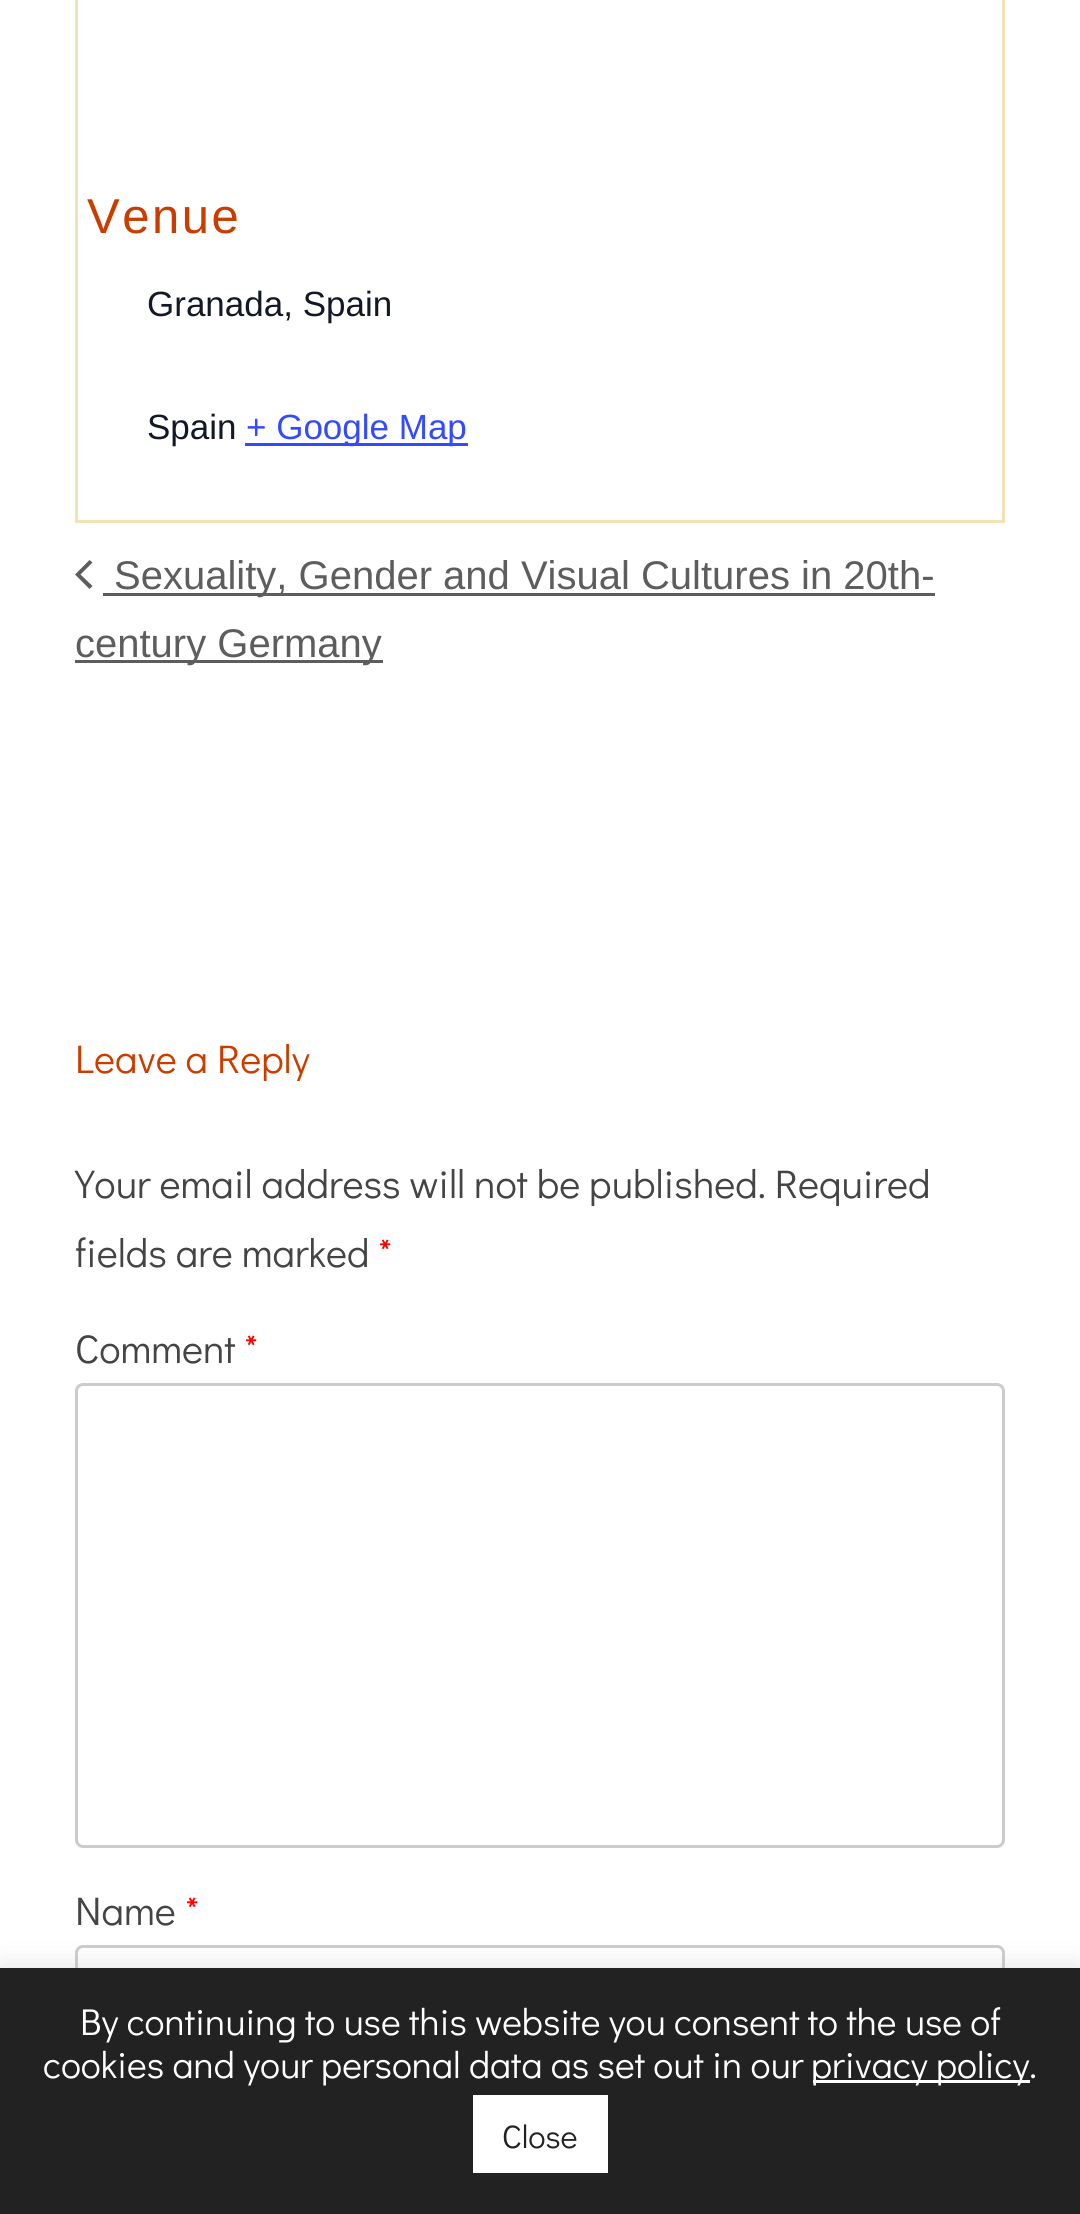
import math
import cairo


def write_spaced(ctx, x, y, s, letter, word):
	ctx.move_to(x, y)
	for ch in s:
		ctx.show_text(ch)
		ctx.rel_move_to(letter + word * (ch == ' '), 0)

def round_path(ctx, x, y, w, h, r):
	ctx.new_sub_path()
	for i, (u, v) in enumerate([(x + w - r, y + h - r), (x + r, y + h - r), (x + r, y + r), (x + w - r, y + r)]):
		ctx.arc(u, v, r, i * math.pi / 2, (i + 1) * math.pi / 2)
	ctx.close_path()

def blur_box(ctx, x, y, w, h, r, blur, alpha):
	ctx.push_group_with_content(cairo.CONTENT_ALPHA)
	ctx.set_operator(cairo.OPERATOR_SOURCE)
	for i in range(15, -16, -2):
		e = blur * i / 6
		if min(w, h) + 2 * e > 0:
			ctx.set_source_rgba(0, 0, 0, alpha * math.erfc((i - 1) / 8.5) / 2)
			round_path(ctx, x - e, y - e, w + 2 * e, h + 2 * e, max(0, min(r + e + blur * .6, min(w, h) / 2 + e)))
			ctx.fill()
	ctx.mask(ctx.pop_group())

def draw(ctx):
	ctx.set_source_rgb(1, 1, 1)
	ctx.paint()
	ctx.rectangle(76.5, -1.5, 927, 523)
	ctx.set_source_rgb(0.949, 0.89, 0.714)
	ctx.set_line_width(3)
	ctx.stroke()
	ctx.select_font_face('Liberation Sans')
	ctx.set_font_size(49)
	ctx.set_source_rgb(0.788, 0.243, 0)
	write_spaced(ctx, 87, 233, 'Venue', 2.5, 0)
	ctx.set_font_size(35)
	ctx.set_source_rgb(0.078, 0.094, 0.153)
	ctx.move_to(147, 316)
	ctx.show_text('Granada, Spain')
	ctx.move_to(147, 439)
	ctx.show_text('Spain')
	ctx.set_source_rgb(0.2, 0.29, 1)
	ctx.rectangle(245, 443, 223, 3)
	ctx.fill()
	ctx.move_to(246, 439)
	ctx.show_text('+ Google Map')
	ctx.set_source_rgb(0.365, 0.365, 0.365)
	ctx.new_path()
	ctx.move_to(92.5, 586)
	ctx.line_to(89.5, 589)
	ctx.line_to(75, 574.5)
	ctx.line_to(89.5, 560)
	ctx.line_to(92.5, 562.5)
	ctx.line_to(80.5, 574.5)
	ctx.close_path()
	ctx.fill()
	ctx.rectangle(103, 593, 832, 3)
	ctx.fill()
	ctx.set_font_size(40)
	ctx.move_to(114, 589)
	ctx.show_text('Sexuality, Gender and Visual Cultures in 20th-')
	ctx.rectangle(75, 660, 308, 3)
	ctx.fill()
	ctx.move_to(75, 657)
	ctx.show_text('century Germany')
	ctx.select_font_face('Didact Gothic')
	ctx.set_source_rgb(0.788, 0.243, 0)
	ctx.move_to(75, 1073)
	ctx.show_text('Leave a Reply')
	ctx.set_source_rgb(0.267, 0.267, 0.267)
	ctx.move_to(75, 1198)
	ctx.show_text('Your email address will not be published. Required')
	ctx.move_to(75, 1267)
	ctx.show_text('fields are marked')
	ctx.set_source_rgb(1, 0, 0)
	ctx.move_to(378, 1267)
	ctx.show_text('*')
	ctx.set_source_rgb(0.267, 0.267, 0.267)
	ctx.move_to(75, 1363)
	ctx.show_text('Comment')
	ctx.set_source_rgb(1, 0, 0)
	ctx.move_to(244, 1363)
	ctx.show_text('*')
	round_path(ctx, 76.5, 1384.5, 927, 462, 6.5)
	ctx.set_source_rgb(0.8, 0.8, 0.8)
	ctx.stroke()
	ctx.set_source_rgb(0.267, 0.267, 0.267)
	ctx.move_to(75, 1925)
	ctx.show_text('Name')
	ctx.set_source_rgb(1, 0, 0)
	ctx.move_to(185, 1925)
	ctx.show_text('*')
	round_path(ctx, 76.5, 1946.5, 927, 102, 6.5)
	ctx.set_source_rgb(0.8, 0.8, 0.8)
	ctx.stroke()
	ctx.set_source_rgb(0.675, 0.671, 0.671)
	blur_box(ctx, 0, 1965, 1080, 248, 0, 12.5, 0.3)
	ctx.set_source_rgb(0.133, 0.133, 0.133)
	ctx.rectangle(0, 1968, 1080, 246)
	ctx.fill()
	ctx.set_font_size(37.5)
	ctx.set_source_rgb(1, 1, 1)
	ctx.move_to(80, 2035)
	ctx.show_text('By continuing to use this website you consent to the use of')
	ctx.move_to(43, 2078)
	ctx.show_text('cookies and your personal data as set out in our')
	ctx.rectangle(813, 2080, 217, 3)
	ctx.fill()
	ctx.move_to(811, 2078)
	ctx.show_text('privacy policy.')
	ctx.rectangle(473, 2095, 135, 78)
	ctx.fill()
	ctx.set_font_size(32.5)
	ctx.set_source_rgb(0.133, 0.133, 0.133)
	ctx.move_to(502, 2148)
	ctx.show_text('Close')


surface = cairo.ImageSurface(cairo.FORMAT_RGB24, 1080, 2214)
ctx = cairo.Context(surface)
options = cairo.FontOptions()
options.set_hint_metrics(cairo.HINT_METRICS_OFF)
options.set_hint_style(cairo.HINT_STYLE_NONE)
ctx.set_font_options(options)
ctx.set_miter_limit(4)
draw(ctx)
surface.write_to_png('image.png')
